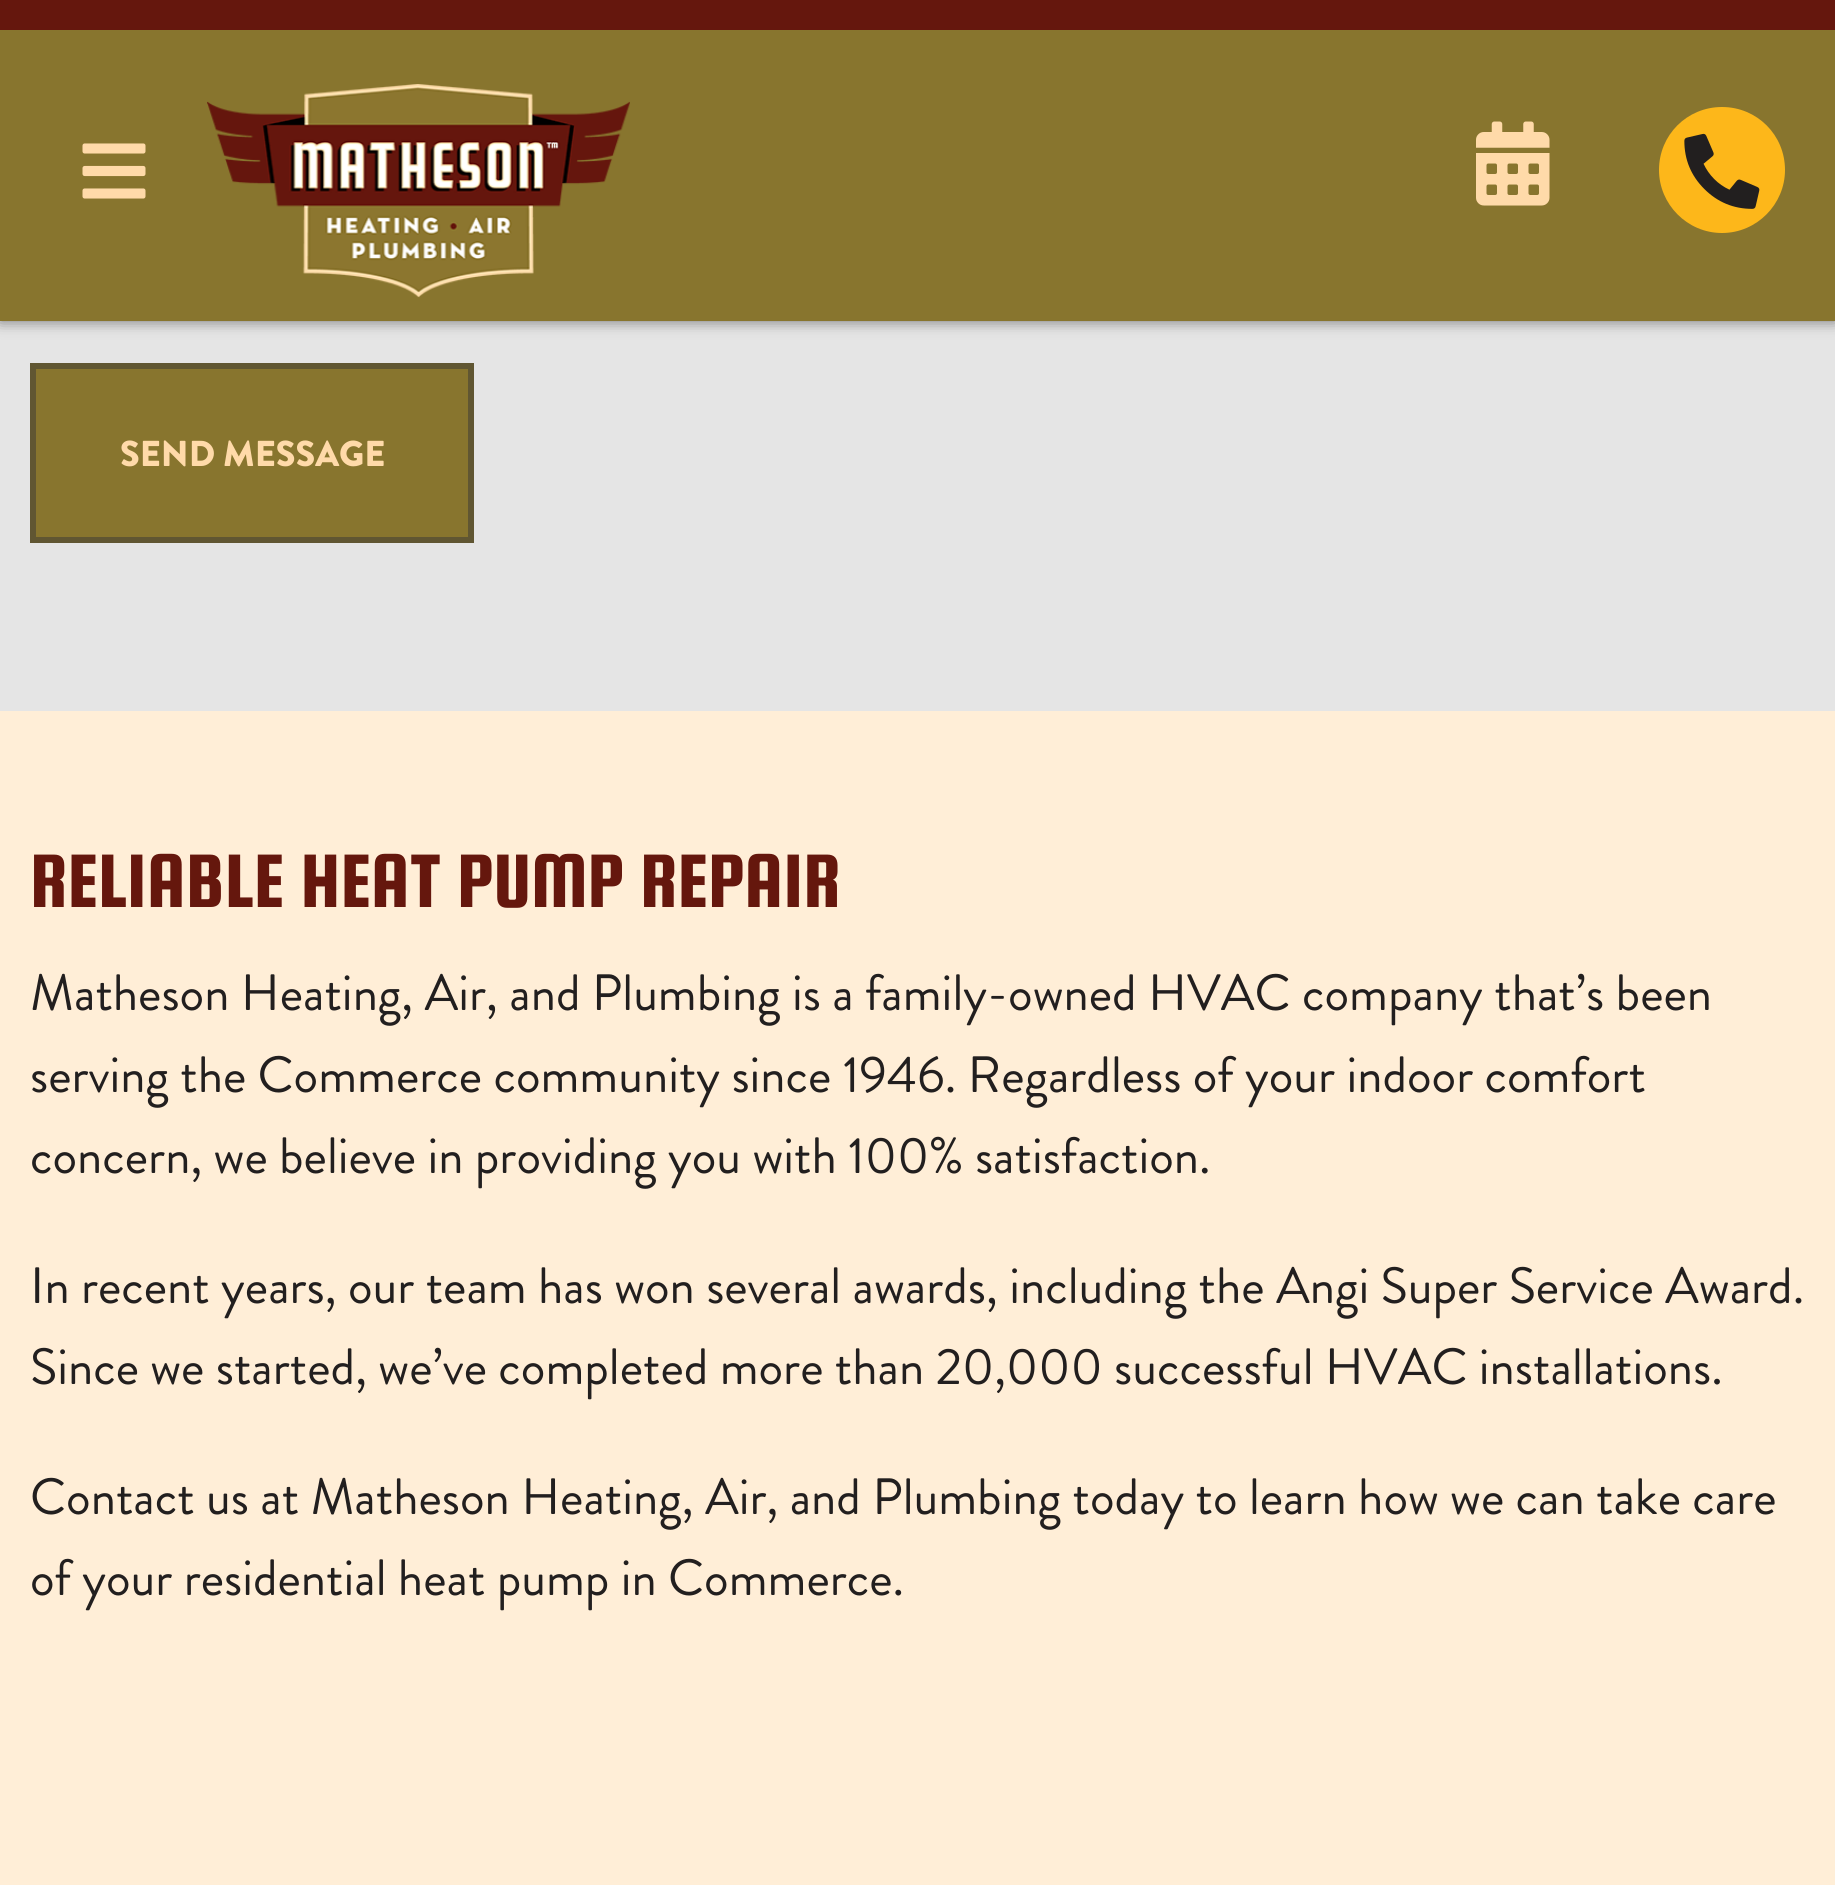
import math
import cairo


def round_path(ctx, x, y, w, h, r):
	ctx.new_sub_path()
	for i, (u, v) in enumerate([(x + w - r, y + h - r), (x + r, y + h - r), (x + r, y + r), (x + w - r, y + r)]):
		ctx.arc(u, v, r, i * math.pi / 2, (i + 1) * math.pi / 2)
	ctx.close_path()

def blur_box(ctx, x, y, w, h, r, blur, alpha):
	ctx.push_group_with_content(cairo.CONTENT_ALPHA)
	ctx.set_operator(cairo.OPERATOR_SOURCE)
	for i in range(15, -16, -2):
		e = blur * i / 6
		if min(w, h) + 2 * e > 0:
			ctx.set_source_rgba(0, 0, 0, alpha * math.erfc((i - 1) / 8.5) / 2)
			round_path(ctx, x - e, y - e, w + 2 * e, h + 2 * e, max(0, min(r + e + blur * .6, min(w, h) / 2 + e)))
			ctx.fill()
	ctx.mask(ctx.pop_group())

def paste(ctx, path, x, y, w, h):
	ctx.save()
	ctx.set_source_surface(cairo.ImageSurface.create_from_png(path), x, y)
	ctx.rectangle(x, y, w, h)
	ctx.fill()
	ctx.restore()

def draw(ctx):
	ctx.set_source_rgb(1, 0.933, 0.843)
	ctx.paint()
	ctx.set_source_rgb(0.898, 0.898, 0.898)
	ctx.rectangle(0, 321, 1835, 390)
	ctx.fill()
	ctx.set_source_rgb(0, 0, 0)
	blur_box(ctx, 0, 0, 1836, 321, 0, 7.5, 0.5)
	ctx.set_source_rgb(0.396, 0.09, 0.051)
	ctx.rectangle(0, 0, 1835, 30)
	ctx.fill()
	ctx.set_source_rgb(0.533, 0.459, 0.18)
	ctx.rectangle(0, 30, 1835, 291)
	ctx.fill()
	paste(ctx, 'media/1.png', 82, 143, 64, 56)
	paste(ctx, 'media/2.png', 207, 84, 423, 214)
	paste(ctx, 'media/3.png', 1476, 121, 74, 85)
	ctx.set_source_rgb(0.992, 0.718, 0.102)
	ctx.new_path()
	ctx.move_to(1722, 107)
	ctx.curve_to(1687, 107, 1659, 135, 1659, 170)
	ctx.curve_to(1659, 204, 1687, 233, 1722, 233)
	ctx.curve_to(1757, 233, 1785, 204, 1785, 170)
	ctx.curve_to(1785, 135, 1757, 107, 1722, 107)
	ctx.close_path()
	ctx.fill()
	paste(ctx, 'media/4.png', 1684, 133, 76, 76)
	ctx.set_source_rgb(0.533, 0.459, 0.18)
	ctx.rectangle(33, 366, 438, 174)
	ctx.fill_preserve()
	ctx.set_source_rgb(0.376, 0.337, 0.196)
	ctx.set_line_width(6)
	ctx.stroke()
	ctx.select_font_face('Brandon Grotesque Black')
	ctx.set_font_size(36)
	ctx.set_source_rgb(1, 0.855, 0.663)
	ctx.move_to(120, 466)
	ctx.show_text('SEND MESSAGE')
	ctx.select_font_face('Squada One')
	ctx.set_font_size(81)
	ctx.set_source_rgb(0.396, 0.09, 0.051)
	ctx.move_to(30, 907)
	ctx.show_text('RELIABLE HEAT PUMP REPAIR')
	ctx.select_font_face('Brandon Grotesque')
	ctx.set_font_size(51)
	ctx.set_source_rgb(0.133, 0.122, 0.122)
	for x, y, s in [
		(30, 1010, 'Matheson Heating, Air, and Plumbing is a family-owned HVAC company that’s been'),
		(30, 1092, 'serving the Commerce community since 1946. Regardless of your indoor comfort'),
		(30, 1173, 'concern, we believe in providing you with 100% satisfaction.'),
		(30, 1303, 'In recent years, our team has won several awards, including the Angi Super Service Award.'),
		(30, 1384, 'Since we started, we’ve completed more than 20,000 successful HVAC installations.'),
		(30, 1514, 'Contact us at Matheson Heating, Air, and Plumbing today to learn how we can take care'),
		(30, 1595, 'of your residential heat pump in Commerce.'),
	]:
		ctx.move_to(x, y)
		ctx.show_text(s)


surface = cairo.ImageSurface(cairo.FORMAT_RGB24, 1835, 1885)
ctx = cairo.Context(surface)
options = cairo.FontOptions()
options.set_hint_metrics(cairo.HINT_METRICS_OFF)
options.set_hint_style(cairo.HINT_STYLE_NONE)
ctx.set_font_options(options)
ctx.set_miter_limit(4)
draw(ctx)
surface.write_to_png('image.png')
